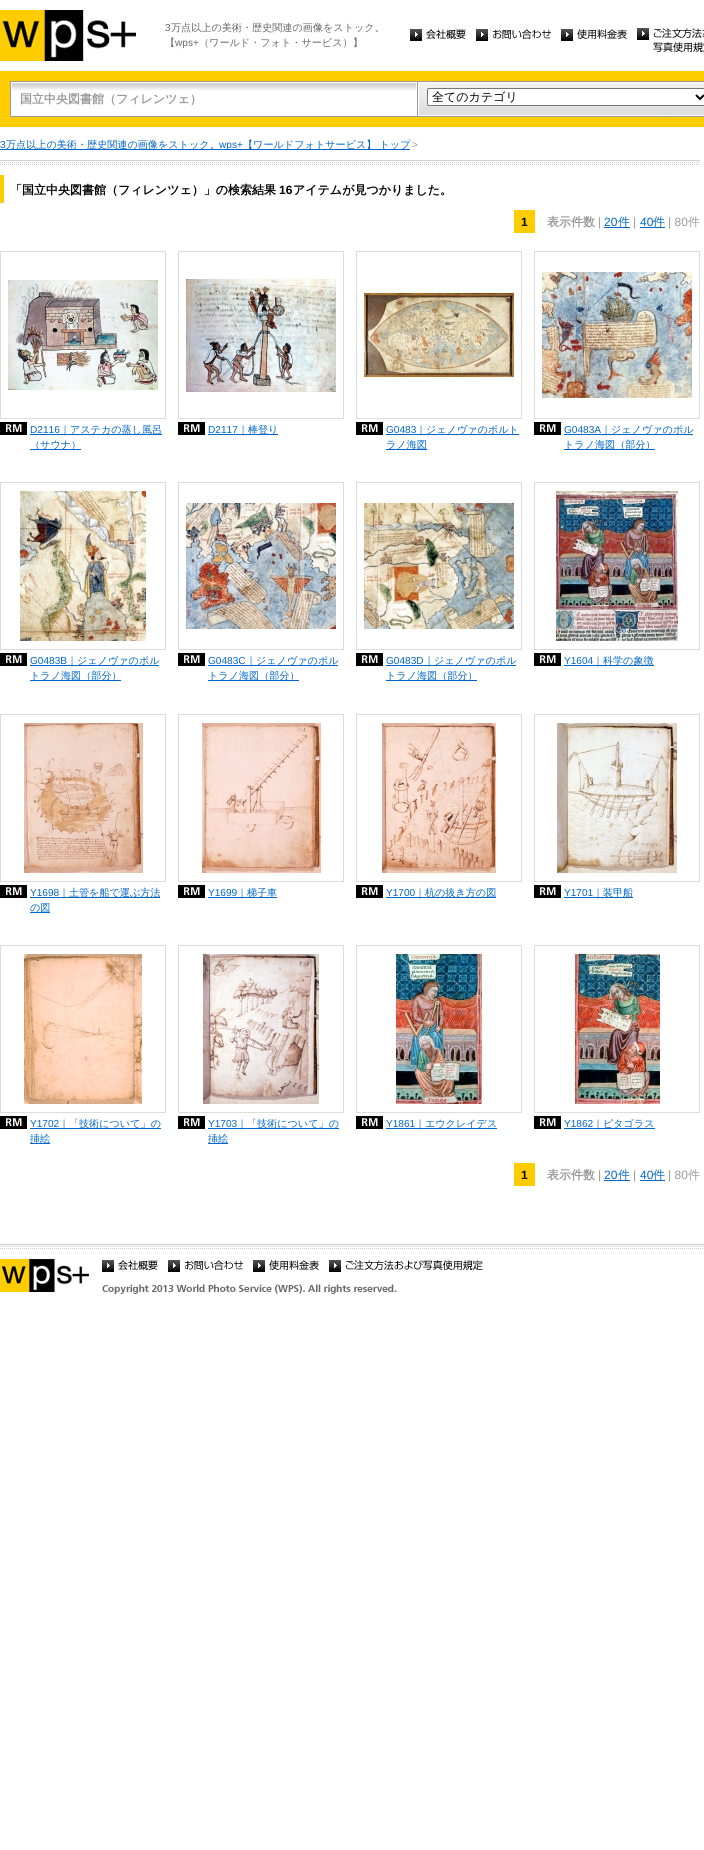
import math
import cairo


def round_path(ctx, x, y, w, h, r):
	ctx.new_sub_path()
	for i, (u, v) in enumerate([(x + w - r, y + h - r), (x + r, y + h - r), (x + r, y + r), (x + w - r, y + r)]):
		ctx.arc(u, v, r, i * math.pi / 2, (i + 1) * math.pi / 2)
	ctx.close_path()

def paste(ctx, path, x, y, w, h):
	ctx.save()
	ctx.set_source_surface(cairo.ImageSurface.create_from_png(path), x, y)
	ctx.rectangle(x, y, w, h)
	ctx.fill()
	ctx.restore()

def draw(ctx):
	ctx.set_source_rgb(1, 1, 1)
	ctx.paint()
	paste(ctx, 'media/1.png', 0, 10, 136, 51)
	ctx.select_font_face('Liberation Sans')
	ctx.set_font_size(10.1)
	ctx.set_source_rgb(0.4, 0.4, 0.4)
	ctx.move_to(165, 31)
	ctx.show_text('3')
	ctx.select_font_face('WenQuanYi Zen Hei Medium')
	ctx.move_to(171, 31)
	ctx.show_text('万点以上の美術・歴史関連の画像をストック。')
	ctx.move_to(165, 46)
	ctx.show_text('【')
	ctx.select_font_face('Liberation Sans')
	ctx.move_to(175, 46)
	ctx.show_text('wps+')
	ctx.select_font_face('WenQuanYi Zen Hei Medium')
	ctx.move_to(199, 46)
	ctx.show_text('（ワールド・フォト・サービス）】')
	paste(ctx, 'media/2.png', 410, 29, 56, 12)
	paste(ctx, 'media/3.png', 476, 29, 75, 12)
	paste(ctx, 'media/4.png', 561, 29, 66, 12)
	paste(ctx, 'media/5.png', 637, 28, 67, 24)
	ctx.set_source_rgb(1, 0.8, 0)
	ctx.rectangle(0, 71, 704, 56)
	ctx.fill()
	paste(ctx, 'media/6.png', 10, 81, 407, 36)
	ctx.select_font_face('WenQuanYi Zen Hei', cairo.FONT_SLANT_NORMAL, cairo.FONT_WEIGHT_BOLD)
	ctx.set_font_size(12)
	ctx.set_source_rgb(0.6, 0.6, 0.6)
	ctx.move_to(20, 103)
	ctx.show_text('国立中央図書館（フィレンツェ）')
	paste(ctx, 'media/7.png', 417, 81, 287, 36)
	ctx.set_source_rgb(1, 1, 1)
	round_path(ctx, 427.5, 88.5, 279, 17, 1.5)
	ctx.fill_preserve()
	ctx.set_source_rgb(0.463, 0.463, 0.463)
	ctx.set_line_width(1)
	ctx.stroke()
	ctx.new_path()
	ctx.move_to(696, 95)
	ctx.line_to(700, 99)
	ctx.line_to(704, 95)
	ctx.set_source_rgb(0, 0, 0)
	ctx.set_line_width(2)
	ctx.stroke()
	ctx.select_font_face('WenQuanYi Zen Hei Medium')
	ctx.move_to(432, 101)
	ctx.show_text('全てのカテゴリ')
	ctx.select_font_face('Liberation Sans')
	ctx.set_font_size(10.1)
	ctx.set_source_rgb(0, 0.4, 0.8)
	ctx.move_to(0, 148)
	ctx.show_text('3')
	ctx.rectangle(0, 149, 410, 1)
	ctx.fill()
	ctx.select_font_face('WenQuanYi Zen Hei Medium')
	ctx.move_to(6, 148)
	ctx.show_text('万点以上の美術・歴史関連の画像をストック。')
	ctx.select_font_face('Liberation Sans')
	ctx.move_to(219, 148)
	ctx.show_text('wps+')
	ctx.select_font_face('WenQuanYi Zen Hei Medium')
	ctx.move_to(243, 148)
	ctx.show_text('【ワールドフォトサービス】 トップ')
	ctx.select_font_face('Liberation Sans')
	ctx.set_source_rgb(0.6, 0.6, 0.6)
	ctx.move_to(412, 148)
	ctx.show_text('>')
	paste(ctx, 'media/8.png', 0, 160, 700, 5)
	ctx.set_source_rgb(1, 0.8, 0)
	ctx.rectangle(0, 175, 4, 28)
	ctx.fill()
	ctx.select_font_face('WenQuanYi Zen Hei', cairo.FONT_SLANT_NORMAL, cairo.FONT_WEIGHT_BOLD)
	ctx.set_font_size(12)
	ctx.set_source_rgb(0, 0, 0)
	ctx.move_to(10, 194)
	ctx.show_text('「国立中央図書館（フィレンツェ）」の検索結果')
	ctx.select_font_face('Liberation Sans', cairo.FONT_SLANT_NORMAL, cairo.FONT_WEIGHT_BOLD)
	ctx.move_to(279, 194)
	ctx.show_text('16')
	ctx.select_font_face('WenQuanYi Zen Hei', cairo.FONT_SLANT_NORMAL, cairo.FONT_WEIGHT_BOLD)
	ctx.move_to(293, 194)
	ctx.show_text('アイテムが見つかりました。')
	ctx.set_source_rgb(1, 0.8, 0)
	ctx.rectangle(514, 210, 21, 23)
	ctx.fill()
	ctx.select_font_face('Liberation Sans', cairo.FONT_SLANT_NORMAL, cairo.FONT_WEIGHT_BOLD)
	ctx.set_source_rgb(0, 0, 0)
	ctx.move_to(521, 226)
	ctx.show_text('1')
	ctx.select_font_face('WenQuanYi Zen Hei', cairo.FONT_SLANT_NORMAL, cairo.FONT_WEIGHT_BOLD)
	ctx.set_source_rgb(0.6, 0.6, 0.6)
	ctx.move_to(547, 226)
	ctx.show_text('表示件数')
	ctx.select_font_face('Liberation Sans')
	ctx.move_to(598, 226)
	ctx.show_text('|')
	ctx.set_source_rgb(0, 0.4, 0.8)
	ctx.move_to(604, 226)
	ctx.show_text('20')
	ctx.rectangle(604, 227, 26, 1)
	ctx.fill()
	ctx.select_font_face('WenQuanYi Zen Hei Medium')
	ctx.move_to(618, 226)
	ctx.show_text('件')
	ctx.select_font_face('Liberation Sans')
	ctx.set_source_rgb(0.6, 0.6, 0.6)
	ctx.move_to(633, 226)
	ctx.show_text('|')
	ctx.set_source_rgb(0, 0.4, 0.8)
	ctx.move_to(640, 226)
	ctx.show_text('40')
	ctx.rectangle(640, 227, 25, 1)
	ctx.fill()
	ctx.select_font_face('WenQuanYi Zen Hei Medium')
	ctx.move_to(653, 226)
	ctx.show_text('件')
	ctx.select_font_face('Liberation Sans')
	ctx.set_source_rgb(0.6, 0.6, 0.6)
	ctx.move_to(668, 226)
	ctx.show_text('| 80')
	ctx.select_font_face('WenQuanYi Zen Hei Medium')
	ctx.move_to(688, 226)
	ctx.show_text('件')
	ctx.set_source_rgb(0.863, 0.863, 0.863)
	ctx.rectangle(0, 251, 166, 1)
	ctx.rectangle(165, 251, 1, 168)
	ctx.rectangle(0, 418, 166, 1)
	ctx.rectangle(0, 251, 1, 168)
	ctx.fill()
	paste(ctx, 'media/9.png', 8, 280, 150, 110)
	paste(ctx, 'media/10.png', 0, 422, 27, 13)
	ctx.select_font_face('Liberation Sans')
	ctx.set_font_size(10.1)
	ctx.set_source_rgb(0, 0.4, 0.8)
	ctx.move_to(30, 433)
	ctx.show_text('D2116')
	ctx.rectangle(30, 434, 132, 1)
	ctx.fill()
	ctx.select_font_face('WenQuanYi Zen Hei Medium')
	ctx.move_to(60, 433)
	ctx.show_text('｜アステカの蒸し風呂')
	ctx.rectangle(30, 449, 51, 1)
	ctx.fill()
	ctx.move_to(30, 448)
	ctx.show_text('（サウナ）')
	ctx.set_source_rgb(0.863, 0.863, 0.863)
	ctx.rectangle(178, 251, 166, 1)
	ctx.rectangle(343, 251, 1, 168)
	ctx.rectangle(178, 418, 166, 1)
	ctx.rectangle(178, 251, 1, 168)
	ctx.fill()
	paste(ctx, 'media/11.png', 186, 279, 150, 113)
	paste(ctx, 'media/10.png', 178, 422, 27, 13)
	ctx.select_font_face('Liberation Sans')
	ctx.set_source_rgb(0, 0.4, 0.8)
	ctx.move_to(208, 433)
	ctx.show_text('D2117')
	ctx.rectangle(208, 434, 70, 1)
	ctx.fill()
	ctx.select_font_face('WenQuanYi Zen Hei Medium')
	ctx.move_to(238, 433)
	ctx.show_text('｜棒登り')
	ctx.set_source_rgb(0.863, 0.863, 0.863)
	ctx.rectangle(356, 251, 166, 1)
	ctx.rectangle(521, 251, 1, 168)
	ctx.rectangle(356, 418, 166, 1)
	ctx.rectangle(356, 251, 1, 168)
	ctx.fill()
	paste(ctx, 'media/12.png', 364, 293, 150, 84)
	paste(ctx, 'media/10.png', 356, 422, 27, 13)
	ctx.select_font_face('Liberation Sans')
	ctx.set_source_rgb(0, 0.4, 0.8)
	ctx.move_to(386, 433)
	ctx.show_text('G0483')
	ctx.rectangle(386, 434, 133, 1)
	ctx.fill()
	ctx.select_font_face('WenQuanYi Zen Hei Medium')
	ctx.move_to(416, 433)
	ctx.show_text('｜ジェノヴァのポルト')
	ctx.rectangle(386, 449, 41, 1)
	ctx.fill()
	ctx.move_to(386, 448)
	ctx.show_text('ラノ海図')
	ctx.set_source_rgb(0.863, 0.863, 0.863)
	ctx.rectangle(534, 251, 166, 1)
	ctx.rectangle(699, 251, 1, 168)
	ctx.rectangle(534, 418, 166, 1)
	ctx.rectangle(534, 251, 1, 168)
	ctx.fill()
	paste(ctx, 'media/13.png', 542, 272, 150, 126)
	paste(ctx, 'media/10.png', 534, 422, 27, 13)
	ctx.select_font_face('Liberation Sans')
	ctx.set_source_rgb(0, 0.4, 0.8)
	ctx.move_to(564, 433)
	ctx.show_text('G0483A')
	ctx.rectangle(564, 434, 129, 1)
	ctx.fill()
	ctx.select_font_face('WenQuanYi Zen Hei Medium')
	ctx.move_to(601, 433)
	ctx.show_text('｜ジェノヴァのポル')
	ctx.rectangle(564, 449, 91, 1)
	ctx.fill()
	ctx.move_to(564, 448)
	ctx.show_text('トラノ海図（部分）')
	ctx.set_source_rgb(0.863, 0.863, 0.863)
	ctx.rectangle(0, 482, 166, 1)
	ctx.rectangle(165, 482, 1, 168)
	ctx.rectangle(0, 649, 166, 1)
	ctx.rectangle(0, 482, 1, 168)
	ctx.fill()
	paste(ctx, 'media/14.png', 20, 491, 126, 150)
	paste(ctx, 'media/10.png', 0, 653, 27, 13)
	ctx.select_font_face('Liberation Sans')
	ctx.set_source_rgb(0, 0.4, 0.8)
	ctx.move_to(30, 664)
	ctx.show_text('G0483B')
	ctx.rectangle(30, 665, 129, 1)
	ctx.fill()
	ctx.select_font_face('WenQuanYi Zen Hei Medium')
	ctx.move_to(67, 664)
	ctx.show_text('｜ジェノヴァのポル')
	ctx.rectangle(30, 680, 91, 1)
	ctx.fill()
	ctx.move_to(30, 679)
	ctx.show_text('トラノ海図（部分）')
	ctx.set_source_rgb(0.863, 0.863, 0.863)
	ctx.rectangle(178, 482, 166, 1)
	ctx.rectangle(343, 482, 1, 168)
	ctx.rectangle(178, 649, 166, 1)
	ctx.rectangle(178, 482, 1, 168)
	ctx.fill()
	paste(ctx, 'media/15.png', 186, 503, 150, 126)
	paste(ctx, 'media/10.png', 178, 653, 27, 13)
	ctx.select_font_face('Liberation Sans')
	ctx.set_source_rgb(0, 0.4, 0.8)
	ctx.move_to(208, 664)
	ctx.show_text('G0483C')
	ctx.rectangle(208, 665, 130, 1)
	ctx.fill()
	ctx.select_font_face('WenQuanYi Zen Hei Medium')
	ctx.move_to(246, 664)
	ctx.show_text('｜ジェノヴァのポル')
	ctx.rectangle(208, 680, 91, 1)
	ctx.fill()
	ctx.move_to(208, 679)
	ctx.show_text('トラノ海図（部分）')
	ctx.set_source_rgb(0.863, 0.863, 0.863)
	ctx.rectangle(356, 482, 166, 1)
	ctx.rectangle(521, 482, 1, 168)
	ctx.rectangle(356, 649, 166, 1)
	ctx.rectangle(356, 482, 1, 168)
	ctx.fill()
	paste(ctx, 'media/16.png', 364, 503, 150, 126)
	paste(ctx, 'media/10.png', 356, 653, 27, 13)
	ctx.select_font_face('Liberation Sans')
	ctx.set_source_rgb(0, 0.4, 0.8)
	ctx.move_to(386, 664)
	ctx.show_text('G0483D')
	ctx.rectangle(386, 665, 130, 1)
	ctx.fill()
	ctx.select_font_face('WenQuanYi Zen Hei Medium')
	ctx.move_to(424, 664)
	ctx.show_text('｜ジェノヴァのポル')
	ctx.rectangle(386, 680, 91, 1)
	ctx.fill()
	ctx.move_to(386, 679)
	ctx.show_text('トラノ海図（部分）')
	ctx.set_source_rgb(0.863, 0.863, 0.863)
	ctx.rectangle(534, 482, 166, 1)
	ctx.rectangle(699, 482, 1, 168)
	ctx.rectangle(534, 649, 166, 1)
	ctx.rectangle(534, 482, 1, 168)
	ctx.fill()
	paste(ctx, 'media/17.png', 556, 491, 122, 150)
	paste(ctx, 'media/10.png', 534, 653, 27, 13)
	ctx.select_font_face('Liberation Sans')
	ctx.set_source_rgb(0, 0.4, 0.8)
	ctx.move_to(564, 664)
	ctx.show_text('Y1604')
	ctx.rectangle(564, 665, 90, 1)
	ctx.fill()
	ctx.select_font_face('WenQuanYi Zen Hei Medium')
	ctx.move_to(593, 664)
	ctx.show_text('｜科学の象徴')
	ctx.set_source_rgb(0.863, 0.863, 0.863)
	ctx.rectangle(0, 714, 166, 1)
	ctx.rectangle(165, 714, 1, 168)
	ctx.rectangle(0, 881, 166, 1)
	ctx.rectangle(0, 714, 1, 168)
	ctx.fill()
	paste(ctx, 'media/18.png', 24, 723, 119, 150)
	paste(ctx, 'media/10.png', 0, 885, 27, 13)
	ctx.select_font_face('Liberation Sans')
	ctx.set_source_rgb(0, 0.4, 0.8)
	ctx.move_to(30, 896)
	ctx.show_text('Y1698')
	ctx.rectangle(30, 897, 130, 1)
	ctx.fill()
	ctx.select_font_face('WenQuanYi Zen Hei Medium')
	ctx.move_to(59, 896)
	ctx.show_text('｜土管を船で運ぶ方法')
	ctx.rectangle(30, 912, 20, 1)
	ctx.fill()
	ctx.move_to(30, 911)
	ctx.show_text('の図')
	ctx.set_source_rgb(0.863, 0.863, 0.863)
	ctx.rectangle(178, 714, 166, 1)
	ctx.rectangle(343, 714, 1, 168)
	ctx.rectangle(178, 881, 166, 1)
	ctx.rectangle(178, 714, 1, 168)
	ctx.fill()
	paste(ctx, 'media/19.png', 202, 723, 119, 150)
	paste(ctx, 'media/10.png', 178, 885, 27, 13)
	ctx.select_font_face('Liberation Sans')
	ctx.set_source_rgb(0, 0.4, 0.8)
	ctx.move_to(208, 896)
	ctx.show_text('Y1699')
	ctx.rectangle(208, 897, 69, 1)
	ctx.fill()
	ctx.select_font_face('WenQuanYi Zen Hei Medium')
	ctx.move_to(237, 896)
	ctx.show_text('｜梯子車')
	ctx.set_source_rgb(0.863, 0.863, 0.863)
	ctx.rectangle(356, 714, 166, 1)
	ctx.rectangle(521, 714, 1, 168)
	ctx.rectangle(356, 881, 166, 1)
	ctx.rectangle(356, 714, 1, 168)
	ctx.fill()
	paste(ctx, 'media/20.png', 382, 723, 114, 150)
	paste(ctx, 'media/10.png', 356, 885, 27, 13)
	ctx.select_font_face('Liberation Sans')
	ctx.set_source_rgb(0, 0.4, 0.8)
	ctx.move_to(386, 896)
	ctx.show_text('Y1700')
	ctx.rectangle(386, 897, 110, 1)
	ctx.fill()
	ctx.select_font_face('WenQuanYi Zen Hei Medium')
	ctx.move_to(415, 896)
	ctx.show_text('｜杭の抜き方の図')
	ctx.set_source_rgb(0.863, 0.863, 0.863)
	ctx.rectangle(534, 714, 166, 1)
	ctx.rectangle(699, 714, 1, 168)
	ctx.rectangle(534, 881, 166, 1)
	ctx.rectangle(534, 714, 1, 168)
	ctx.fill()
	paste(ctx, 'media/21.png', 557, 723, 120, 150)
	paste(ctx, 'media/10.png', 534, 885, 27, 13)
	ctx.select_font_face('Liberation Sans')
	ctx.set_source_rgb(0, 0.4, 0.8)
	ctx.move_to(564, 896)
	ctx.show_text('Y1701')
	ctx.rectangle(564, 897, 69, 1)
	ctx.fill()
	ctx.select_font_face('WenQuanYi Zen Hei Medium')
	ctx.move_to(593, 896)
	ctx.show_text('｜装甲船')
	ctx.set_source_rgb(0.863, 0.863, 0.863)
	ctx.rectangle(0, 945, 166, 1)
	ctx.rectangle(165, 945, 1, 168)
	ctx.rectangle(0, 1112, 166, 1)
	ctx.rectangle(0, 945, 1, 168)
	ctx.fill()
	paste(ctx, 'media/22.png', 24, 954, 118, 150)
	paste(ctx, 'media/10.png', 0, 1116, 27, 13)
	ctx.select_font_face('Liberation Sans')
	ctx.set_source_rgb(0, 0.4, 0.8)
	ctx.move_to(30, 1127)
	ctx.show_text('Y1702')
	ctx.rectangle(30, 1128, 131, 1)
	ctx.fill()
	ctx.select_font_face('WenQuanYi Zen Hei Medium')
	ctx.move_to(59, 1127)
	ctx.show_text('｜「技術について」の')
	ctx.rectangle(30, 1143, 20, 1)
	ctx.fill()
	ctx.move_to(30, 1142)
	ctx.show_text('挿絵')
	ctx.set_source_rgb(0.863, 0.863, 0.863)
	ctx.rectangle(178, 945, 166, 1)
	ctx.rectangle(343, 945, 1, 168)
	ctx.rectangle(178, 1112, 166, 1)
	ctx.rectangle(178, 945, 1, 168)
	ctx.fill()
	paste(ctx, 'media/23.png', 203, 954, 116, 150)
	paste(ctx, 'media/10.png', 178, 1116, 27, 13)
	ctx.select_font_face('Liberation Sans')
	ctx.set_source_rgb(0, 0.4, 0.8)
	ctx.move_to(208, 1127)
	ctx.show_text('Y1703')
	ctx.rectangle(208, 1128, 131, 1)
	ctx.fill()
	ctx.select_font_face('WenQuanYi Zen Hei Medium')
	ctx.move_to(237, 1127)
	ctx.show_text('｜「技術について」の')
	ctx.rectangle(208, 1143, 20, 1)
	ctx.fill()
	ctx.move_to(208, 1142)
	ctx.show_text('挿絵')
	ctx.set_source_rgb(0.863, 0.863, 0.863)
	ctx.rectangle(356, 945, 166, 1)
	ctx.rectangle(521, 945, 1, 168)
	ctx.rectangle(356, 1112, 166, 1)
	ctx.rectangle(356, 945, 1, 168)
	ctx.fill()
	paste(ctx, 'media/24.png', 396, 954, 86, 150)
	paste(ctx, 'media/10.png', 356, 1116, 27, 13)
	ctx.select_font_face('Liberation Sans')
	ctx.set_source_rgb(0, 0.4, 0.8)
	ctx.move_to(386, 1127)
	ctx.show_text('Y1861')
	ctx.rectangle(386, 1128, 111, 1)
	ctx.fill()
	ctx.select_font_face('WenQuanYi Zen Hei Medium')
	ctx.move_to(415, 1127)
	ctx.show_text('｜エウクレイデス')
	ctx.set_source_rgb(0.863, 0.863, 0.863)
	ctx.rectangle(534, 945, 166, 1)
	ctx.rectangle(699, 945, 1, 168)
	ctx.rectangle(534, 1112, 166, 1)
	ctx.rectangle(534, 945, 1, 168)
	ctx.fill()
	paste(ctx, 'media/25.png', 575, 954, 85, 150)
	paste(ctx, 'media/10.png', 534, 1116, 27, 13)
	ctx.select_font_face('Liberation Sans')
	ctx.set_source_rgb(0, 0.4, 0.8)
	ctx.move_to(564, 1127)
	ctx.show_text('Y1862')
	ctx.rectangle(564, 1128, 91, 1)
	ctx.fill()
	ctx.select_font_face('WenQuanYi Zen Hei Medium')
	ctx.move_to(593, 1127)
	ctx.show_text('｜ピタゴラス')
	ctx.set_source_rgb(1, 0.8, 0)
	ctx.rectangle(514, 1163, 21, 23)
	ctx.fill()
	ctx.select_font_face('Liberation Sans', cairo.FONT_SLANT_NORMAL, cairo.FONT_WEIGHT_BOLD)
	ctx.set_font_size(12)
	ctx.set_source_rgb(0, 0, 0)
	ctx.move_to(521, 1179)
	ctx.show_text('1')
	ctx.select_font_face('WenQuanYi Zen Hei', cairo.FONT_SLANT_NORMAL, cairo.FONT_WEIGHT_BOLD)
	ctx.set_source_rgb(0.6, 0.6, 0.6)
	ctx.move_to(547, 1179)
	ctx.show_text('表示件数')
	ctx.select_font_face('Liberation Sans')
	ctx.move_to(598, 1179)
	ctx.show_text('|')
	ctx.set_source_rgb(0, 0.4, 0.8)
	ctx.move_to(604, 1179)
	ctx.show_text('20')
	ctx.rectangle(604, 1180, 26, 1)
	ctx.fill()
	ctx.select_font_face('WenQuanYi Zen Hei Medium')
	ctx.move_to(618, 1179)
	ctx.show_text('件')
	ctx.select_font_face('Liberation Sans')
	ctx.set_source_rgb(0.6, 0.6, 0.6)
	ctx.move_to(633, 1179)
	ctx.show_text('|')
	ctx.set_source_rgb(0, 0.4, 0.8)
	ctx.move_to(640, 1179)
	ctx.show_text('40')
	ctx.rectangle(640, 1180, 25, 1)
	ctx.fill()
	ctx.select_font_face('WenQuanYi Zen Hei Medium')
	ctx.move_to(653, 1179)
	ctx.show_text('件')
	ctx.select_font_face('Liberation Sans')
	ctx.set_source_rgb(0.6, 0.6, 0.6)
	ctx.move_to(668, 1179)
	ctx.show_text('| 80')
	ctx.select_font_face('WenQuanYi Zen Hei Medium')
	ctx.move_to(688, 1179)
	ctx.show_text('件')
	paste(ctx, 'media/26.png', 0, 1244, 704, 5)
	paste(ctx, 'media/27.png', 0, 1259, 89, 33)
	paste(ctx, 'media/2.png', 102, 1260, 56, 12)
	paste(ctx, 'media/3.png', 168, 1260, 75, 12)
	paste(ctx, 'media/4.png', 253, 1260, 66, 12)
	paste(ctx, 'media/28.png', 329, 1260, 154, 12)
	paste(ctx, 'media/29.png', 102, 1284, 295, 10)


surface = cairo.ImageSurface(cairo.FORMAT_RGB24, 704, 1850)
ctx = cairo.Context(surface)
options = cairo.FontOptions()
options.set_hint_metrics(cairo.HINT_METRICS_OFF)
options.set_hint_style(cairo.HINT_STYLE_NONE)
ctx.set_font_options(options)
ctx.set_miter_limit(4)
draw(ctx)
surface.write_to_png('image.png')
